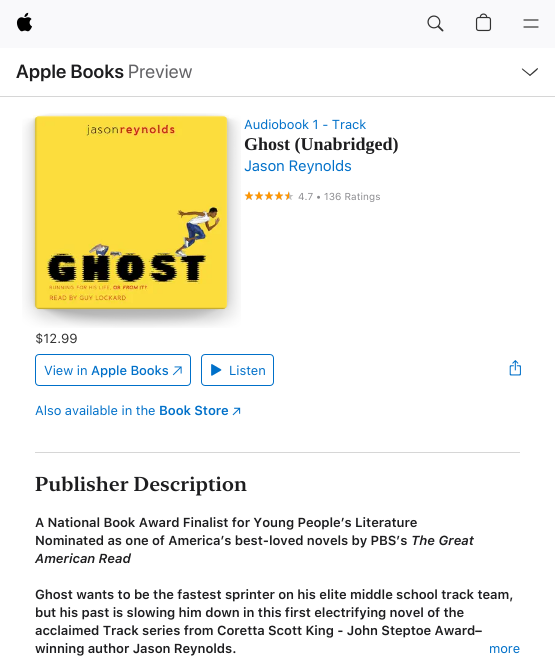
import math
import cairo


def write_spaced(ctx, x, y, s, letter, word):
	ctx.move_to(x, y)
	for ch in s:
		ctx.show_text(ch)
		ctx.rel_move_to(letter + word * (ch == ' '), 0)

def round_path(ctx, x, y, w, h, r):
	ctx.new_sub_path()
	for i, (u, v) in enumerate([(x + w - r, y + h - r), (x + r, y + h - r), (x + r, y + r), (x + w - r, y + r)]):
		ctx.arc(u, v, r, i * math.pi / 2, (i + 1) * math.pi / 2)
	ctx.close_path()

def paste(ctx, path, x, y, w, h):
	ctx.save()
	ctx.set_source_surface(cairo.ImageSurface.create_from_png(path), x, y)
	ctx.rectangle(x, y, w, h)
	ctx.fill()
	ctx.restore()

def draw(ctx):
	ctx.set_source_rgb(1, 1, 1)
	ctx.paint()
	ctx.set_source_rgb(0.976, 0.976, 0.984)
	ctx.rectangle(0, 0, 555, 48)
	ctx.fill()
	paste(ctx, 'media/1.png', 16, 12, 16, 20)
	paste(ctx, 'media/2.png', 427, 15, 17, 17)
	paste(ctx, 'media/3.png', 475, 13, 17, 19)
	ctx.new_path()
	ctx.move_to(524, 27)
	ctx.line_to(538, 27)
	ctx.move_to(524, 20)
	ctx.line_to(538, 20)
	ctx.set_source_rgb(0.196, 0.196, 0.196)
	ctx.set_line_width(1.2)
	ctx.set_line_cap(cairo.LINE_CAP_ROUND)
	ctx.set_line_join(cairo.LINE_JOIN_ROUND)
	ctx.stroke()
	ctx.select_font_face('SF Pro Display SemiBold')
	ctx.set_font_size(19)
	ctx.set_source_rgb(0.114, 0.114, 0.122)
	write_spaced(ctx, 16, 78, 'Apple Books', 0.25, 0)
	ctx.select_font_face('SF Pro Display')
	ctx.set_source_rgb(0.388, 0.388, 0.4)
	write_spaced(ctx, 128, 78, 'Preview', 0.25, 0)
	ctx.set_source_rgb(0.2, 0.2, 0.2)
	ctx.new_path()
	ctx.move_to(522.5, 68.5)
	ctx.line_to(530.5, 75)
	ctx.line_to(530, 76)
	ctx.line_to(524.5, 71.5)
	ctx.curve_to(524.5, 71.5, 521, 69, 522, 68.5)
	ctx.close_path()
	ctx.fill()
	ctx.new_path()
	ctx.move_to(529.5, 75)
	ctx.line_to(534.5, 70.5)
	ctx.curve_to(535, 70.5, 537.5, 67, 538, 68.5)
	ctx.curve_to(538.5, 69.5, 531, 75, 530, 76)
	ctx.close_path()
	ctx.fill()
	ctx.set_source_rgb(0.839, 0.839, 0.839)
	ctx.rectangle(0, 96, 555, 1)
	ctx.fill()
	paste(ctx, 'media/4.png', 22, 113, 219, 215)
	paste(ctx, 'media/5.png', 33, 115, 196, 195)
	paste(ctx, 'media/6.png', 35, 116, 192, 193)
	paste(ctx, 'media/7.png', 35, 116, 192, 193)
	ctx.select_font_face('SF Pro Text')
	ctx.set_font_size(13)
	ctx.set_source_rgb(0, 0.439, 0.788)
	write_spaced(ctx, 244, 129, 'Audiobook 1 - Track', -0.07, 0)
	ctx.select_font_face('Liberation Serif', cairo.FONT_SLANT_NORMAL, cairo.FONT_WEIGHT_BOLD)
	ctx.set_font_size(18)
	ctx.set_source_rgb(0.114, 0.114, 0.122)
	ctx.move_to(244, 150)
	ctx.show_text('Ghost (Unabridged)')
	ctx.select_font_face('SF Pro Text')
	ctx.set_font_size(15)
	ctx.set_source_rgb(0, 0.439, 0.788)
	write_spaced(ctx, 244, 171, 'Jason Reynolds', -0.25, 0)
	paste(ctx, 'media/8.png', 244, 192, 50, 8)
	paste(ctx, 'media/9.png', 244, 191, 45, 9)
	ctx.set_font_size(10)
	ctx.set_source_rgb(0.541, 0.541, 0.557)
	write_spaced(ctx, 298, 200, '4.7 • 136 Ratings', 0.1, 0)
	ctx.set_font_size(13)
	ctx.set_source_rgb(0.2, 0.2, 0.2)
	write_spaced(ctx, 35, 343, '$12.99', -0.07, 0)
	round_path(ctx, 35.5, 354.5, 155, 31, 3.5)
	ctx.set_source_rgb(0, 0.439, 0.788)
	ctx.set_line_width(1)
	ctx.set_line_cap(cairo.LINE_CAP_BUTT)
	ctx.set_line_join(cairo.LINE_JOIN_MITER)
	ctx.stroke()
	write_spaced(ctx, 44, 375, 'View in', -0.07, 0)
	ctx.select_font_face('SF Pro Text Medium')
	write_spaced(ctx, 91, 375, 'Apple Books', -0.07, 0)
	paste(ctx, 'media/10.png', 172, 366, 10, 10)
	round_path(ctx, 201.5, 354.5, 72, 31, 3.5)
	ctx.stroke()
	paste(ctx, 'media/11.png', 211, 364, 11, 12)
	ctx.select_font_face('SF Pro Text')
	write_spaced(ctx, 229, 375, 'Listen', -0.07, 0)
	paste(ctx, 'media/12.png', 509, 360, 12, 16)
	write_spaced(ctx, 35, 415, 'Also available in the', -0.07, 0)
	ctx.select_font_face('SF Pro Text SemiBold')
	write_spaced(ctx, 159, 415, 'Book Store', -0.07, 0)
	paste(ctx, 'media/13.png', 232, 407, 9, 9)
	ctx.set_source_rgb(0.839, 0.839, 0.839)
	ctx.rectangle(35, 452, 485, 1)
	ctx.fill()
	ctx.select_font_face('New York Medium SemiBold')
	ctx.set_font_size(20)
	ctx.set_source_rgb(0.114, 0.114, 0.122)
	ctx.move_to(35, 491)
	ctx.show_text('Publisher Description')
	ctx.select_font_face('SF Pro Text SemiBold')
	ctx.set_font_size(13)
	write_spaced(ctx, 35, 527, 'A National Book Award Finalist for Young People’s Literature', -0.07, 0)
	write_spaced(ctx, 35, 545, 'Nominated as one of America’s best-loved novels by PBS’s', -0.07, 0)
	ctx.select_font_face('SF Pro Text SemiBold', cairo.FONT_SLANT_ITALIC)
	write_spaced(ctx, 411, 545, 'The Great', -0.07, 0)
	write_spaced(ctx, 35, 563, 'American Read', -0.07, 0)
	ctx.select_font_face('SF Pro Text SemiBold')
	for x, y, s in [
		(35, 599, 'Ghost wants to be the fastest sprinter on his elite middle school track team,'),
		(35, 617, 'but his past is slowing him down in this first electrifying novel of the'),
		(35, 635, 'acclaimed Track series from Coretta Scott King - John Steptoe Award–'),
		(35, 653, 'winning author Jason Reynolds.'),
	]:
		write_spaced(ctx, x, y, s, -0.07, 0)
	ctx.select_font_face('SF Pro Text')
	ctx.set_source_rgb(0, 0.439, 0.788)
	write_spaced(ctx, 489, 653, 'more', -0.07, 0)


surface = cairo.ImageSurface(cairo.FORMAT_RGB24, 555, 666)
ctx = cairo.Context(surface)
options = cairo.FontOptions()
options.set_hint_metrics(cairo.HINT_METRICS_OFF)
options.set_hint_style(cairo.HINT_STYLE_NONE)
ctx.set_font_options(options)
ctx.set_miter_limit(4)
draw(ctx)
surface.write_to_png('image.png')
